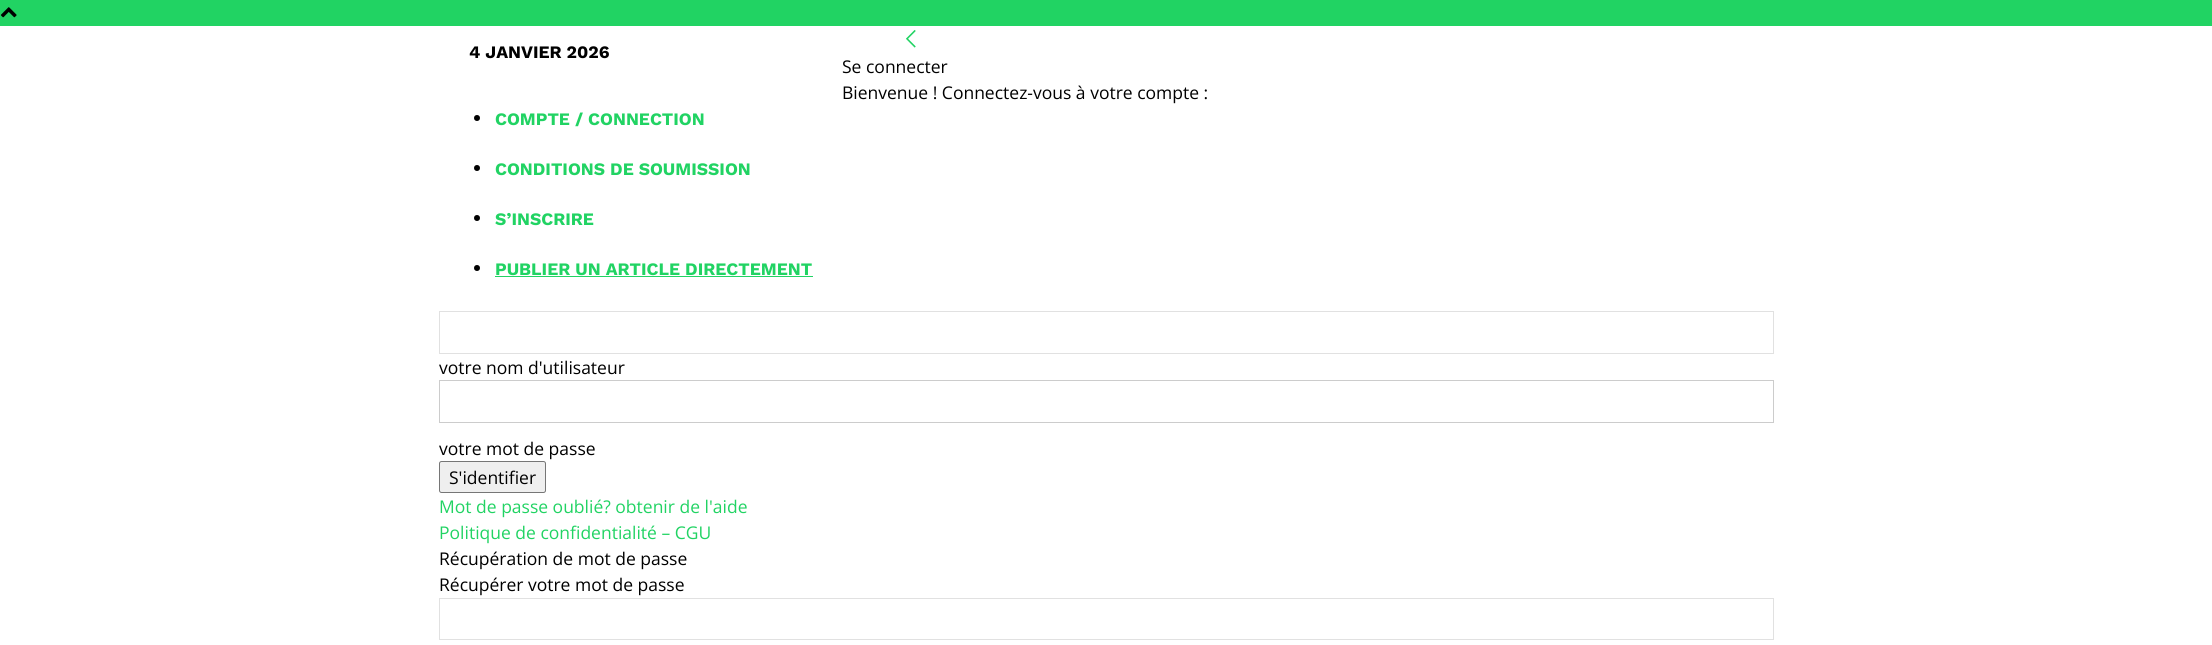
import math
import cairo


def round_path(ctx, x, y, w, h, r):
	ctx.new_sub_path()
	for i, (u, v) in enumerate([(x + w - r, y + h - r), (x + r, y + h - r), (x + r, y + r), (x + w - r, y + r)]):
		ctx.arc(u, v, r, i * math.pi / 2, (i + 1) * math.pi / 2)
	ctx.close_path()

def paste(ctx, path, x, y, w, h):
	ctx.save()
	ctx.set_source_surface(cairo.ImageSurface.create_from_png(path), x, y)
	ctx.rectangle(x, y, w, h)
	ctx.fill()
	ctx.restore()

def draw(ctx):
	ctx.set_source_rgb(1, 1, 1)
	ctx.paint()
	ctx.set_source_rgb(0.129, 0.827, 0.388)
	ctx.rectangle(0, 0, 2212, 26)
	ctx.fill()
	paste(ctx, 'media/1.png', 0, 7, 17, 11)
	ctx.select_font_face('Work Sans', cairo.FONT_SLANT_NORMAL, cairo.FONT_WEIGHT_BOLD)
	ctx.set_font_size(17.5)
	ctx.set_source_rgb(0, 0, 0)
	ctx.move_to(469, 58)
	ctx.show_text('4 JANVIER 2026')
	ctx.new_path()
	ctx.arc(477, 118, 3, 0, 2 * math.pi)
	ctx.fill()
	ctx.set_source_rgb(0.129, 0.827, 0.388)
	ctx.move_to(495, 125)
	ctx.show_text('COMPTE / CONNECTION')
	ctx.set_source_rgb(0, 0, 0)
	ctx.new_path()
	ctx.arc(477, 168, 3, 0, 2 * math.pi)
	ctx.fill()
	ctx.set_source_rgb(0.129, 0.827, 0.388)
	ctx.move_to(495, 175)
	ctx.show_text('CONDITIONS DE SOUMISSION')
	ctx.set_source_rgb(0, 0, 0)
	ctx.new_path()
	ctx.arc(477, 218, 3, 0, 2 * math.pi)
	ctx.fill()
	ctx.set_source_rgb(0.129, 0.827, 0.388)
	ctx.move_to(495, 225)
	ctx.show_text('S’INSCRIRE')
	ctx.set_source_rgb(0, 0, 0)
	ctx.new_path()
	ctx.arc(477, 268, 3, 0, 2 * math.pi)
	ctx.fill()
	ctx.set_source_rgb(0.129, 0.827, 0.388)
	ctx.move_to(495, 275)
	ctx.show_text('PUBLIER UN ARTICLE DIRECTEMENT')
	ctx.rectangle(495, 276, 318, 1)
	ctx.fill()
	paste(ctx, 'media/2.png', 906, 30, 10, 18)
	ctx.select_font_face('Open Sans')
	ctx.set_source_rgb(0, 0, 0)
	ctx.move_to(842, 73)
	ctx.show_text('Se connecter')
	ctx.move_to(842, 99)
	ctx.show_text('Bienvenue ! Connectez-vous à votre compte :')
	ctx.rectangle(439.5, 311.5, 1334, 42)
	ctx.set_source_rgb(0.882, 0.882, 0.882)
	ctx.set_line_width(1)
	ctx.stroke()
	ctx.set_source_rgb(0, 0, 0)
	ctx.move_to(439, 374)
	ctx.show_text('votre nom d\'utilisateur')
	ctx.rectangle(439.5, 380.5, 1334, 42)
	ctx.set_source_rgb(0.8, 0.8, 0.8)
	ctx.stroke()
	ctx.set_source_rgb(0, 0, 0)
	ctx.move_to(439, 455)
	ctx.show_text('votre mot de passe')
	ctx.set_source_rgb(0.937, 0.937, 0.937)
	round_path(ctx, 439.5, 461.5, 106, 31, 2)
	ctx.fill_preserve()
	ctx.set_source_rgb(0.463, 0.463, 0.463)
	ctx.stroke()
	ctx.set_source_rgb(0, 0, 0)
	ctx.move_to(449, 484)
	ctx.show_text('S\'identifier')
	ctx.set_source_rgb(0.129, 0.827, 0.388)
	ctx.move_to(439, 513)
	ctx.show_text('Mot de passe oublié? obtenir de l\'aide')
	ctx.move_to(439, 539)
	ctx.show_text('Politique de confidentialité – CGU')
	ctx.set_source_rgb(0, 0, 0)
	ctx.move_to(439, 565)
	ctx.show_text('Récupération de mot de passe')
	ctx.move_to(439, 591)
	ctx.show_text('Récupérer votre mot de passe')
	ctx.rectangle(439.5, 598.5, 1334, 41)
	ctx.set_source_rgb(0.882, 0.882, 0.882)
	ctx.stroke()


surface = cairo.ImageSurface(cairo.FORMAT_RGB24, 2212, 645)
ctx = cairo.Context(surface)
options = cairo.FontOptions()
options.set_hint_metrics(cairo.HINT_METRICS_OFF)
options.set_hint_style(cairo.HINT_STYLE_NONE)
ctx.set_font_options(options)
ctx.set_miter_limit(4)
draw(ctx)
surface.write_to_png('image.png')
